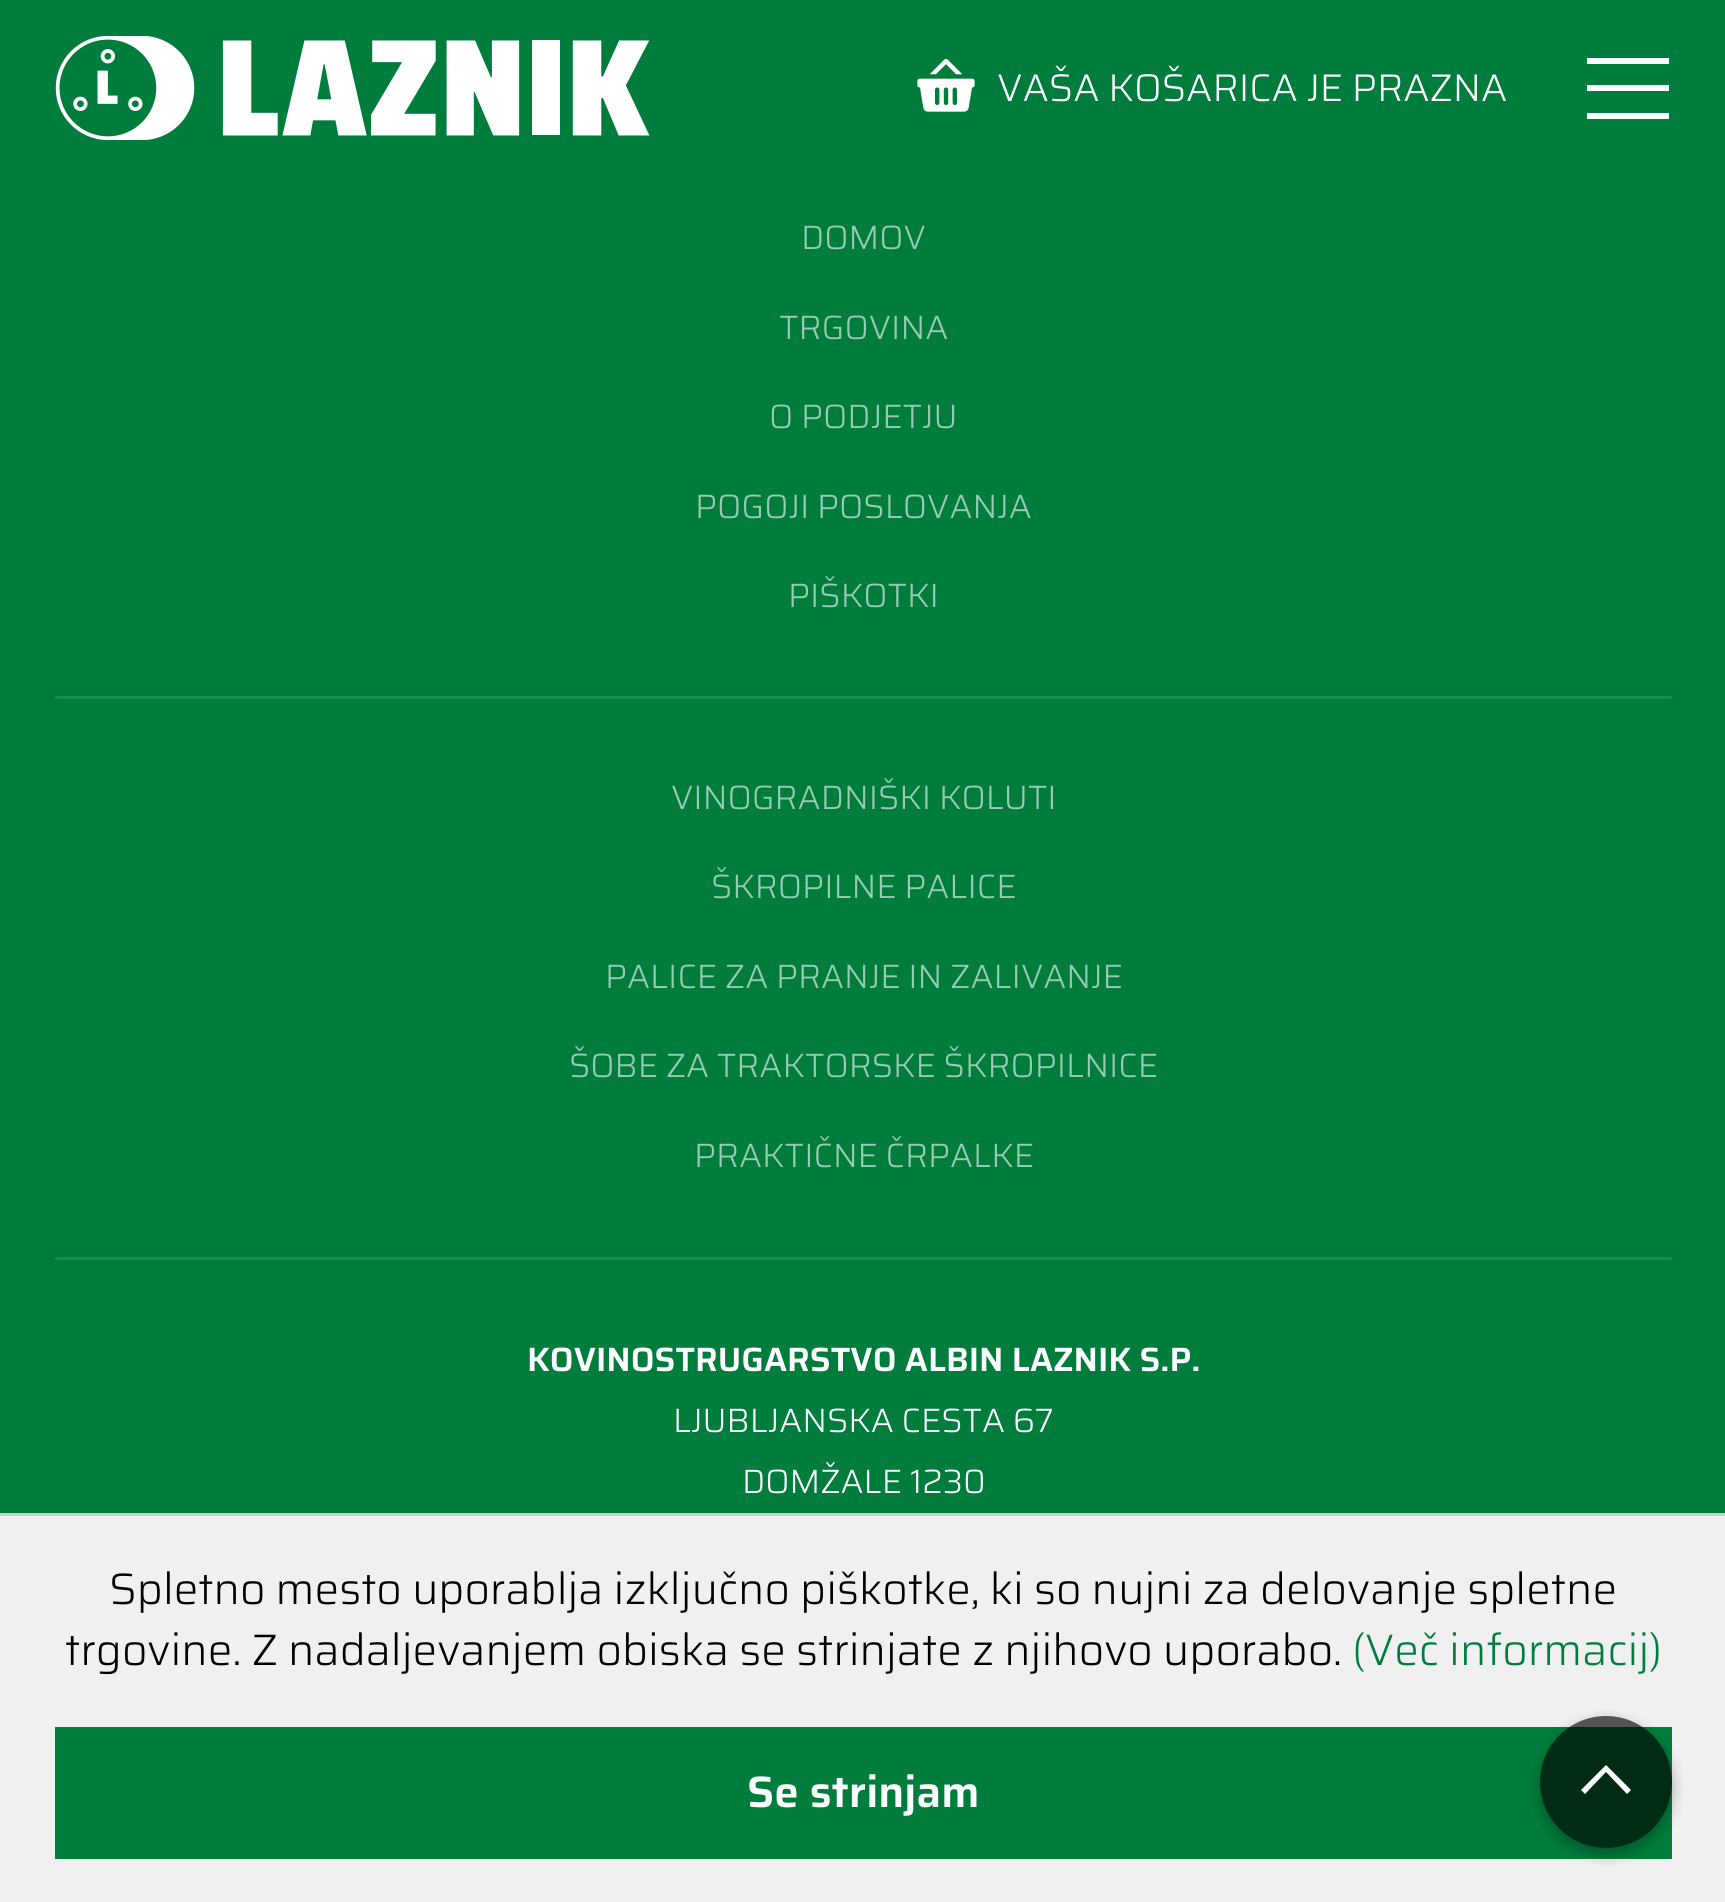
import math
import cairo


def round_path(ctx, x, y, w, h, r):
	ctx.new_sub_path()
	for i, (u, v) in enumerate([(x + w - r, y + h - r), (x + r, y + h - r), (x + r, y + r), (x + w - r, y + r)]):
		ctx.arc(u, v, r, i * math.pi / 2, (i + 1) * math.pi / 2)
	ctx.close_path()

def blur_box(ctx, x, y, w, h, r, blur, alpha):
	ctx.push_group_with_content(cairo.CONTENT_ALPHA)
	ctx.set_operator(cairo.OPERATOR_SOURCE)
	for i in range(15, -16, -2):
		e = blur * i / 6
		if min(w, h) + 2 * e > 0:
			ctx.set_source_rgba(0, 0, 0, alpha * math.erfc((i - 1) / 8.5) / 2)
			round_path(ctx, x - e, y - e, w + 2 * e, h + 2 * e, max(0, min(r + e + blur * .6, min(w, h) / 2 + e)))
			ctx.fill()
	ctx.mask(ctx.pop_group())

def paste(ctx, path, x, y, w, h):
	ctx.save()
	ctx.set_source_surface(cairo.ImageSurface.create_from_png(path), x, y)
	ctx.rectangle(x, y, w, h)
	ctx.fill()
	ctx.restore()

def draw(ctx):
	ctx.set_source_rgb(0, 0.49, 0.235)
	ctx.paint()
	paste(ctx, 'media/1.png', 55, 36, 595, 104)
	paste(ctx, 'media/2.png', 917, 58, 58, 54)
	ctx.select_font_face('Saira Light')
	ctx.set_font_size(38.5)
	ctx.set_source_rgb(1, 1, 1)
	ctx.move_to(997, 101)
	ctx.show_text('VAŠA KOŠARICA JE PRAZNA')
	ctx.rectangle(1587, 58, 82, 6)
	ctx.rectangle(1587, 85, 82, 6)
	ctx.rectangle(1587, 113, 82, 6)
	ctx.fill()
	ctx.set_source_rgb(0.102, 0.541, 0.314)
	ctx.rectangle(55, 696, 1617, 3)
	ctx.fill()
	ctx.set_font_size(33.7)
	ctx.set_source_rgb(0.6, 0.796, 0.694)
	for x, y, s in [
		(801, 249, 'DOMOV'),
		(779, 339, 'TRGOVINA'),
		(769, 428, 'O PODJETJU'),
		(695, 518, 'POGOJI POSLOVANJA'),
		(788, 607, 'PIŠKOTKI'),
	]:
		ctx.move_to(x, y)
		ctx.show_text(s)
	ctx.set_source_rgb(0.102, 0.541, 0.314)
	ctx.rectangle(55, 1257, 1617, 3)
	ctx.fill()
	ctx.set_source_rgb(0.6, 0.796, 0.694)
	for x, y, s in [
		(671, 809, 'VINOGRADNIŠKI KOLUTI'),
		(711, 898, 'ŠKROPILNE PALICE'),
		(605, 988, 'PALICE ZA PRANJE IN ZALIVANJE'),
		(569, 1077, 'ŠOBE ZA TRAKTORSKE ŠKROPILNICE'),
		(694, 1167, 'PRAKTIČNE ČRPALKE'),
	]:
		ctx.move_to(x, y)
		ctx.show_text(s)
	ctx.select_font_face('Saira SemiBold')
	ctx.set_source_rgb(1, 1, 1)
	ctx.move_to(527, 1371)
	ctx.show_text('KOVINOSTRUGARSTVO ALBIN LAZNIK S.P.')
	ctx.select_font_face('Saira Light')
	ctx.move_to(673, 1432)
	ctx.show_text('LJUBLJANSKA CESTA 67')
	ctx.move_to(742, 1493)
	ctx.show_text('DOMŽALE 1230')
	ctx.set_source_rgb(0.941, 0.941, 0.941)
	ctx.rectangle(0, 1516, 1725, 386)
	ctx.fill()
	ctx.set_source_rgb(0.8, 0.8, 0.8)
	ctx.rectangle(0, 1513, 1725, 3)
	ctx.fill()
	ctx.set_font_size(44)
	ctx.set_source_rgb(0, 0, 0)
	ctx.move_to(109, 1604)
	ctx.show_text('Spletno mesto uporablja izključno piškotke, ki so nujni za delovanje spletne')
	ctx.move_to(65, 1665)
	ctx.show_text('trgovine. Z nadaljevanjem obiska se strinjate z njihovo uporabo.')
	ctx.set_source_rgb(0, 0.49, 0.235)
	ctx.move_to(1352, 1665)
	ctx.show_text('(Več informacij)')
	ctx.rectangle(55, 1727, 1617, 132)
	ctx.fill()
	ctx.select_font_face('Saira SemiBold')
	ctx.set_source_rgb(1, 1, 1)
	ctx.move_to(747, 1807)
	ctx.show_text('Se strinjam')
	ctx.save()
	ctx.set_fill_rule(cairo.FILL_RULE_EVEN_ODD)
	ctx.new_path()
	ctx.move_to(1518, 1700)
	ctx.line_to(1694, 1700)
	ctx.line_to(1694, 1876)
	ctx.line_to(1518, 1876)
	ctx.close_path()
	ctx.move_to(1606, 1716)
	ctx.curve_to(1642.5, 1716, 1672, 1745.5, 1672, 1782)
	ctx.curve_to(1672, 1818.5, 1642.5, 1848, 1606, 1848)
	ctx.curve_to(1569.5, 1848, 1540, 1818.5, 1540, 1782)
	ctx.curve_to(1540, 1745.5, 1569.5, 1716, 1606, 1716)
	ctx.close_path()
	ctx.clip()
	ctx.set_source_rgb(0, 0, 0)
	blur_box(ctx, 1540, 1722, 132, 132, 66, 7, 0.3)
	ctx.restore()
	ctx.set_source_rgba(0, 0, 0, 0.65)
	ctx.arc(1606, 1782, 66, 0, 2 * math.pi)
	ctx.fill()
	ctx.set_source_rgb(1, 1, 1)
	ctx.new_path()
	ctx.move_to(1581, 1790)
	ctx.line_to(1585, 1794)
	ctx.line_to(1606, 1772)
	ctx.line_to(1627, 1794)
	ctx.line_to(1631, 1790)
	ctx.line_to(1606, 1765)
	ctx.close_path()
	ctx.fill()


surface = cairo.ImageSurface(cairo.FORMAT_RGB24, 1725, 1902)
ctx = cairo.Context(surface)
options = cairo.FontOptions()
options.set_hint_metrics(cairo.HINT_METRICS_OFF)
options.set_hint_style(cairo.HINT_STYLE_NONE)
ctx.set_font_options(options)
ctx.set_miter_limit(4)
draw(ctx)
surface.write_to_png('image.png')
